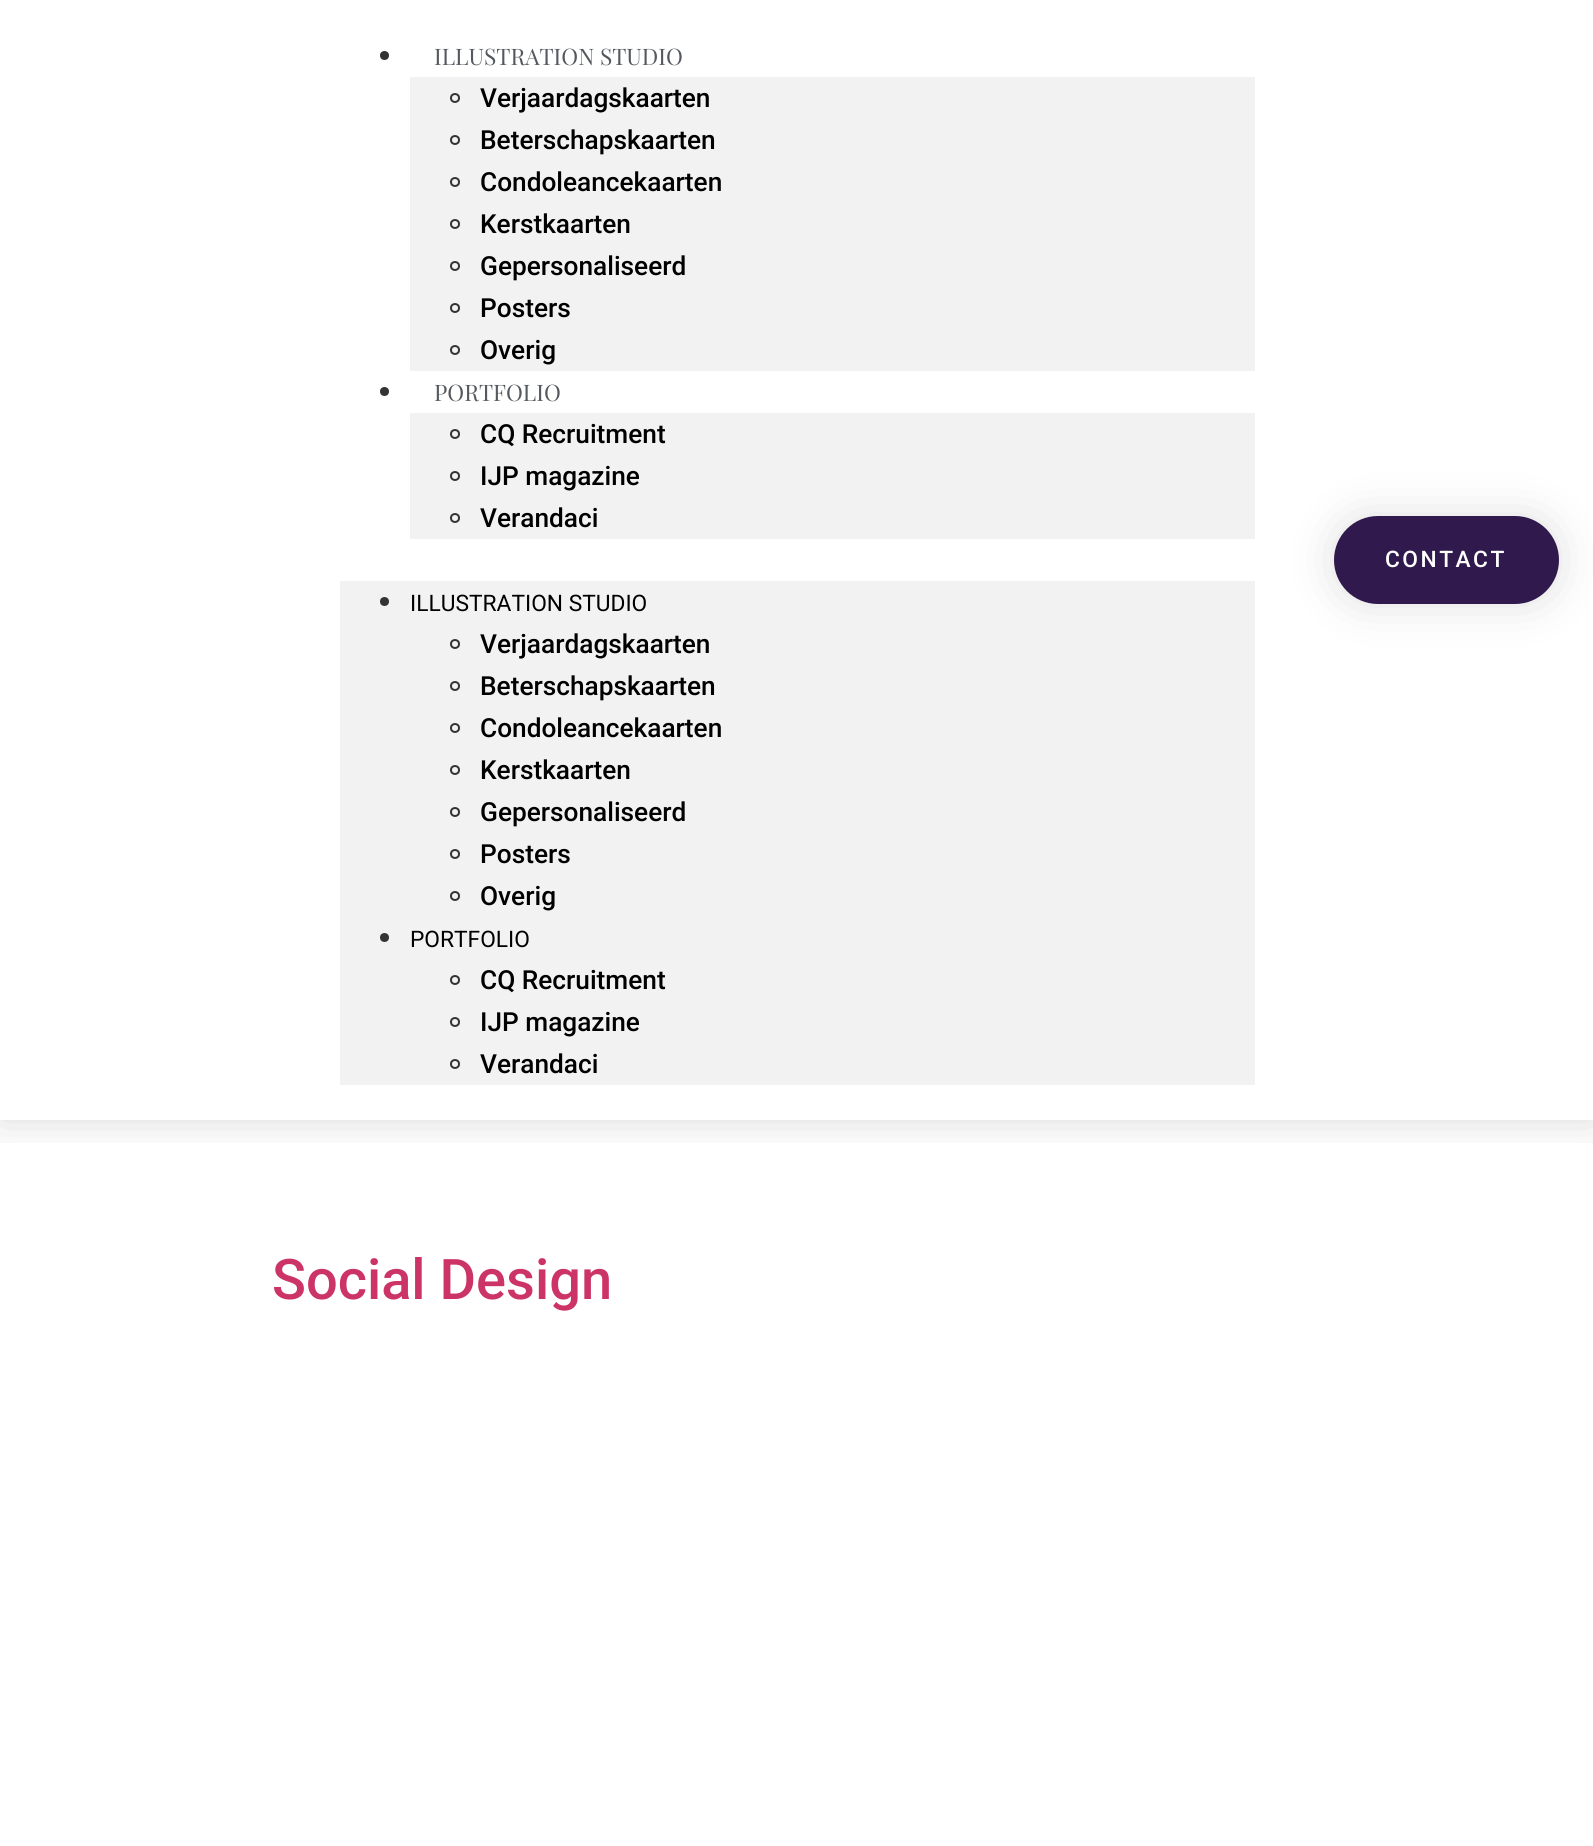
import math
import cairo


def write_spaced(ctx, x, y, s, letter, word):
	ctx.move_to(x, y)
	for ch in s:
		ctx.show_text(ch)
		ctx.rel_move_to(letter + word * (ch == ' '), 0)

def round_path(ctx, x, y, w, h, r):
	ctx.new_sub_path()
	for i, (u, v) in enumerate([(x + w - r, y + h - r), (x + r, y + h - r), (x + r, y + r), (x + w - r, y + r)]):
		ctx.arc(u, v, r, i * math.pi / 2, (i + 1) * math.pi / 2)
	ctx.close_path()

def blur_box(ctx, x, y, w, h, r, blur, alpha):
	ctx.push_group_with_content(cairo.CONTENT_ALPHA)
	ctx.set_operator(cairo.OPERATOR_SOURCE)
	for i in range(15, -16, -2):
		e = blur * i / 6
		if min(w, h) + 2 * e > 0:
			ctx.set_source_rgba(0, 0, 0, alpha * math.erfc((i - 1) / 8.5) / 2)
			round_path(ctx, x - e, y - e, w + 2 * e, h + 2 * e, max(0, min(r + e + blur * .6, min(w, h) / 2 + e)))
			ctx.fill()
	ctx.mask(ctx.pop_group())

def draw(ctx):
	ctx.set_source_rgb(1, 1, 1)
	ctx.paint()
	ctx.save()
	ctx.rectangle(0, 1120, 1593, 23)
	ctx.clip()
	ctx.set_source_rgb(0, 0, 0)
	blur_box(ctx, 0, 0, 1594, 1120, 0, 21, 0.15)
	ctx.restore()
	ctx.set_source_rgb(0.2, 0.2, 0.2)
	ctx.arc(384.5, 55.5, 4.5, 0, 2 * math.pi)
	ctx.fill()
	ctx.select_font_face('Playfair Display')
	ctx.set_font_size(22.75)
	ctx.set_source_rgb(0.329, 0.349, 0.373)
	ctx.move_to(434, 65)
	ctx.show_text('ILLUSTRATION STUDIO')
	ctx.set_source_rgb(0.949, 0.949, 0.949)
	ctx.rectangle(410, 77, 845, 294)
	ctx.fill()
	ctx.arc(455, 98, 4, 0, 2 * math.pi)
	ctx.set_source_rgb(0.2, 0.2, 0.2)
	ctx.stroke()
	ctx.select_font_face('Roboto Medium')
	ctx.set_font_size(26.25)
	ctx.set_source_rgb(0, 0, 0)
	ctx.move_to(480, 107)
	ctx.show_text('Verjaardagskaarten')
	ctx.new_path()
	ctx.arc(455, 140, 4, 0, 2 * math.pi)
	ctx.set_source_rgb(0.2, 0.2, 0.2)
	ctx.stroke()
	ctx.set_source_rgb(0, 0, 0)
	ctx.move_to(480, 149)
	ctx.show_text('Beterschapskaarten')
	ctx.new_path()
	ctx.arc(455, 182, 4, 0, 2 * math.pi)
	ctx.set_source_rgb(0.2, 0.2, 0.2)
	ctx.stroke()
	ctx.set_source_rgb(0, 0, 0)
	ctx.move_to(480, 191)
	ctx.show_text('Condoleancekaarten')
	ctx.new_path()
	ctx.arc(455, 224, 4, 0, 2 * math.pi)
	ctx.set_source_rgb(0.2, 0.2, 0.2)
	ctx.stroke()
	ctx.set_source_rgb(0, 0, 0)
	ctx.move_to(480, 233)
	ctx.show_text('Kerstkaarten')
	ctx.new_path()
	ctx.arc(455, 266, 4, 0, 2 * math.pi)
	ctx.set_source_rgb(0.2, 0.2, 0.2)
	ctx.stroke()
	ctx.set_source_rgb(0, 0, 0)
	ctx.move_to(480, 275)
	ctx.show_text('Gepersonaliseerd')
	ctx.new_path()
	ctx.arc(455, 308, 4, 0, 2 * math.pi)
	ctx.set_source_rgb(0.2, 0.2, 0.2)
	ctx.stroke()
	ctx.set_source_rgb(0, 0, 0)
	ctx.move_to(480, 317)
	ctx.show_text('Posters')
	ctx.new_path()
	ctx.arc(455, 350, 4, 0, 2 * math.pi)
	ctx.set_source_rgb(0.2, 0.2, 0.2)
	ctx.stroke()
	ctx.set_source_rgb(0, 0, 0)
	ctx.move_to(480, 359)
	ctx.show_text('Overig')
	ctx.set_source_rgb(0.2, 0.2, 0.2)
	ctx.new_path()
	ctx.arc(384.5, 391.5, 4.5, 0, 2 * math.pi)
	ctx.fill()
	ctx.select_font_face('Playfair Display')
	ctx.set_font_size(22.75)
	ctx.set_source_rgb(0.329, 0.349, 0.373)
	ctx.move_to(434, 401)
	ctx.show_text('PORTFOLIO')
	ctx.set_source_rgb(0.949, 0.949, 0.949)
	ctx.rectangle(410, 413, 845, 126)
	ctx.fill()
	ctx.arc(455, 434, 4, 0, 2 * math.pi)
	ctx.set_source_rgb(0.2, 0.2, 0.2)
	ctx.stroke()
	ctx.select_font_face('Roboto Medium')
	ctx.set_font_size(26.25)
	ctx.set_source_rgb(0, 0, 0)
	ctx.move_to(480, 443)
	ctx.show_text('CQ Recruitment')
	ctx.new_path()
	ctx.arc(455, 476, 4, 0, 2 * math.pi)
	ctx.set_source_rgb(0.2, 0.2, 0.2)
	ctx.stroke()
	ctx.set_source_rgb(0, 0, 0)
	ctx.move_to(480, 485)
	ctx.show_text('IJP magazine')
	ctx.new_path()
	ctx.arc(455, 518, 4, 0, 2 * math.pi)
	ctx.set_source_rgb(0.2, 0.2, 0.2)
	ctx.stroke()
	ctx.set_source_rgb(0, 0, 0)
	ctx.move_to(480, 527)
	ctx.show_text('Verandaci')
	ctx.set_source_rgb(0.949, 0.949, 0.949)
	ctx.rectangle(340, 581, 915, 504)
	ctx.fill()
	ctx.set_source_rgb(0.2, 0.2, 0.2)
	ctx.arc(384.5, 601.5, 4.5, 0, 2 * math.pi)
	ctx.fill()
	ctx.select_font_face('Roboto')
	ctx.set_font_size(22.75)
	ctx.set_source_rgb(0, 0, 0)
	ctx.move_to(410, 611)
	ctx.show_text('ILLUSTRATION STUDIO')
	ctx.new_path()
	ctx.arc(455, 644, 4, 0, 2 * math.pi)
	ctx.set_source_rgb(0.2, 0.2, 0.2)
	ctx.stroke()
	ctx.select_font_face('Roboto Medium')
	ctx.set_font_size(26.25)
	ctx.set_source_rgb(0, 0, 0)
	ctx.move_to(480, 653)
	ctx.show_text('Verjaardagskaarten')
	ctx.new_path()
	ctx.arc(455, 686, 4, 0, 2 * math.pi)
	ctx.set_source_rgb(0.2, 0.2, 0.2)
	ctx.stroke()
	ctx.set_source_rgb(0, 0, 0)
	ctx.move_to(480, 695)
	ctx.show_text('Beterschapskaarten')
	ctx.new_path()
	ctx.arc(455, 728, 4, 0, 2 * math.pi)
	ctx.set_source_rgb(0.2, 0.2, 0.2)
	ctx.stroke()
	ctx.set_source_rgb(0, 0, 0)
	ctx.move_to(480, 737)
	ctx.show_text('Condoleancekaarten')
	ctx.new_path()
	ctx.arc(455, 770, 4, 0, 2 * math.pi)
	ctx.set_source_rgb(0.2, 0.2, 0.2)
	ctx.stroke()
	ctx.set_source_rgb(0, 0, 0)
	ctx.move_to(480, 779)
	ctx.show_text('Kerstkaarten')
	ctx.new_path()
	ctx.arc(455, 812, 4, 0, 2 * math.pi)
	ctx.set_source_rgb(0.2, 0.2, 0.2)
	ctx.stroke()
	ctx.set_source_rgb(0, 0, 0)
	ctx.move_to(480, 821)
	ctx.show_text('Gepersonaliseerd')
	ctx.new_path()
	ctx.arc(455, 854, 4, 0, 2 * math.pi)
	ctx.set_source_rgb(0.2, 0.2, 0.2)
	ctx.stroke()
	ctx.set_source_rgb(0, 0, 0)
	ctx.move_to(480, 863)
	ctx.show_text('Posters')
	ctx.new_path()
	ctx.arc(455, 896, 4, 0, 2 * math.pi)
	ctx.set_source_rgb(0.2, 0.2, 0.2)
	ctx.stroke()
	ctx.set_source_rgb(0, 0, 0)
	ctx.move_to(480, 905)
	ctx.show_text('Overig')
	ctx.set_source_rgb(0.2, 0.2, 0.2)
	ctx.new_path()
	ctx.arc(384.5, 937.5, 4.5, 0, 2 * math.pi)
	ctx.fill()
	ctx.select_font_face('Roboto')
	ctx.set_font_size(22.75)
	ctx.set_source_rgb(0, 0, 0)
	ctx.move_to(410, 947)
	ctx.show_text('PORTFOLIO')
	ctx.new_path()
	ctx.arc(455, 980, 4, 0, 2 * math.pi)
	ctx.set_source_rgb(0.2, 0.2, 0.2)
	ctx.stroke()
	ctx.select_font_face('Roboto Medium')
	ctx.set_font_size(26.25)
	ctx.set_source_rgb(0, 0, 0)
	ctx.move_to(480, 989)
	ctx.show_text('CQ Recruitment')
	ctx.new_path()
	ctx.arc(455, 1022, 4, 0, 2 * math.pi)
	ctx.set_source_rgb(0.2, 0.2, 0.2)
	ctx.stroke()
	ctx.set_source_rgb(0, 0, 0)
	ctx.move_to(480, 1031)
	ctx.show_text('IJP magazine')
	ctx.new_path()
	ctx.arc(455, 1064, 4, 0, 2 * math.pi)
	ctx.set_source_rgb(0.2, 0.2, 0.2)
	ctx.stroke()
	ctx.set_source_rgb(0, 0, 0)
	ctx.move_to(480, 1073)
	ctx.show_text('Verandaci')
	ctx.set_source_rgb(0, 0, 0)
	blur_box(ctx, 1334, 516, 225, 88, 44, 23.5, 0.12)
	ctx.set_source_rgb(0.188, 0.102, 0.302)
	round_path(ctx, 1334, 516, 225, 88, 44)
	ctx.fill()
	ctx.set_font_size(22.75)
	ctx.set_source_rgb(1, 1, 1)
	write_spaced(ctx, 1385, 567, 'CONTACT', 2.5, 0)
	ctx.set_font_size(56)
	ctx.set_source_rgb(0.8, 0.2, 0.4)
	ctx.move_to(272, 1299)
	ctx.show_text('Social Design')


surface = cairo.ImageSurface(cairo.FORMAT_RGB24, 1593, 1846)
ctx = cairo.Context(surface)
options = cairo.FontOptions()
options.set_hint_metrics(cairo.HINT_METRICS_OFF)
options.set_hint_style(cairo.HINT_STYLE_NONE)
ctx.set_font_options(options)
ctx.set_miter_limit(4)
draw(ctx)
surface.write_to_png('image.png')
